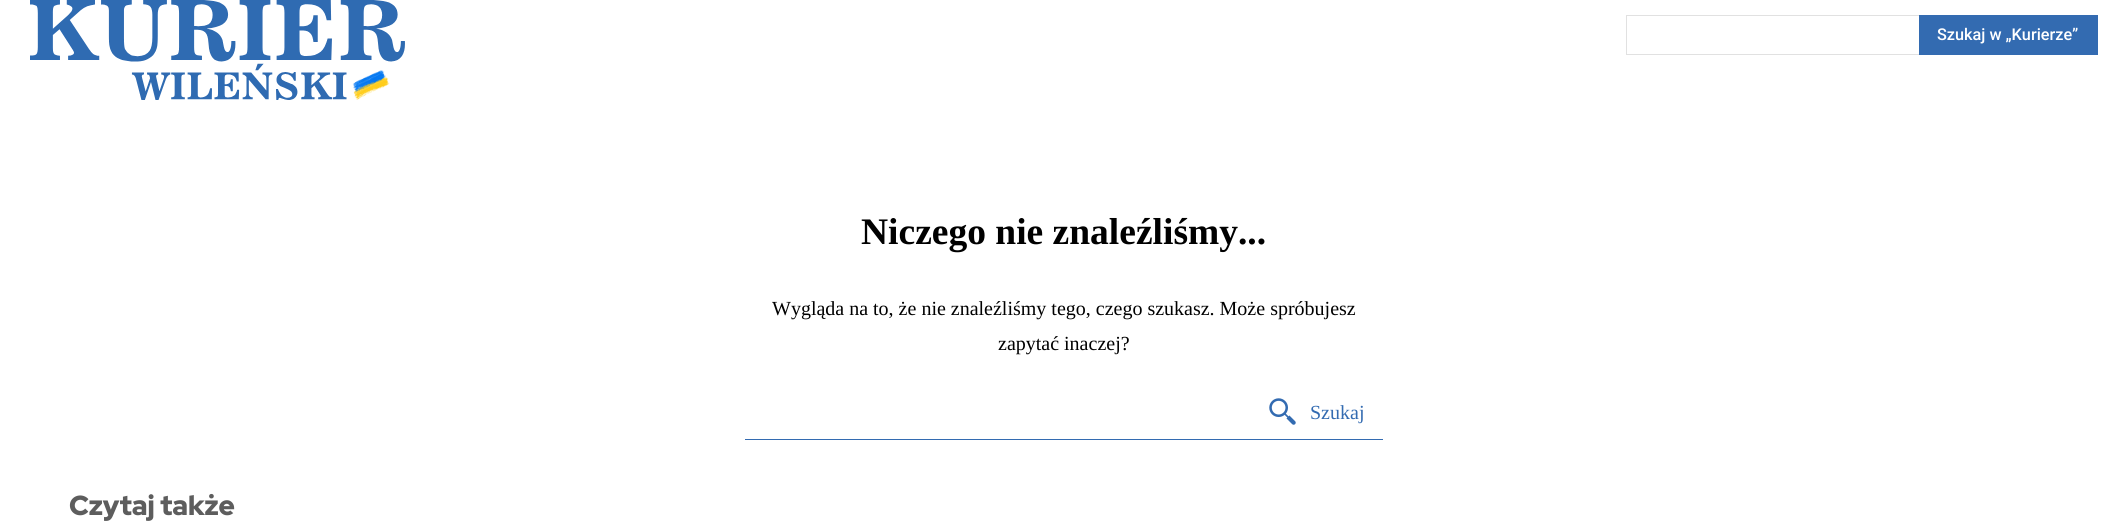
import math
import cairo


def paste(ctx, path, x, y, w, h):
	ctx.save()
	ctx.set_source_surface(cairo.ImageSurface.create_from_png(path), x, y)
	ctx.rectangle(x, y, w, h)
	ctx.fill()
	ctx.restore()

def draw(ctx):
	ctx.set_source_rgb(1, 1, 1)
	ctx.paint()
	paste(ctx, 'media/1.png', 30, 0, 375, 100)
	ctx.rectangle(1626.5, 15.5, 471, 39)
	ctx.set_source_rgb(0.882, 0.882, 0.882)
	ctx.set_line_width(1)
	ctx.stroke()
	ctx.set_source_rgb(0.2, 0.42, 0.694)
	ctx.rectangle(1919, 15, 179, 40)
	ctx.fill()
	ctx.select_font_face('Roboto Medium')
	ctx.set_font_size(16.25)
	ctx.set_source_rgb(1, 1, 1)
	ctx.move_to(1937, 40)
	ctx.show_text('Szukaj w „Kurierze”')
	ctx.select_font_face('Liberation Serif', cairo.FONT_SLANT_NORMAL, cairo.FONT_WEIGHT_BOLD)
	ctx.set_font_size(37.5)
	ctx.set_source_rgb(0, 0, 0)
	ctx.move_to(861, 244)
	ctx.show_text('Niczego nie znaleźliśmy...')
	ctx.select_font_face('Liberation Serif')
	ctx.set_font_size(20)
	ctx.move_to(772, 315)
	ctx.show_text('Wygląda na to, że nie znaleźliśmy tego, czego szukasz. Może spróbujesz')
	ctx.move_to(998, 350)
	ctx.show_text('zapytać inaczej?')
	paste(ctx, 'media/2.png', 1269, 398, 27, 27)
	ctx.set_source_rgb(0.2, 0.42, 0.694)
	ctx.move_to(1310, 419)
	ctx.show_text('Szukaj')
	ctx.rectangle(745, 439, 638, 1)
	ctx.fill()
	ctx.select_font_face('Red Hat Display Black')
	ctx.set_font_size(27.5)
	ctx.set_source_rgb(0.365, 0.365, 0.365)
	ctx.move_to(69, 515)
	ctx.show_text('Czytaj także')


surface = cairo.ImageSurface(cairo.FORMAT_RGB24, 2127, 529)
ctx = cairo.Context(surface)
options = cairo.FontOptions()
options.set_hint_metrics(cairo.HINT_METRICS_OFF)
options.set_hint_style(cairo.HINT_STYLE_NONE)
ctx.set_font_options(options)
ctx.set_miter_limit(4)
draw(ctx)
surface.write_to_png('image.png')
